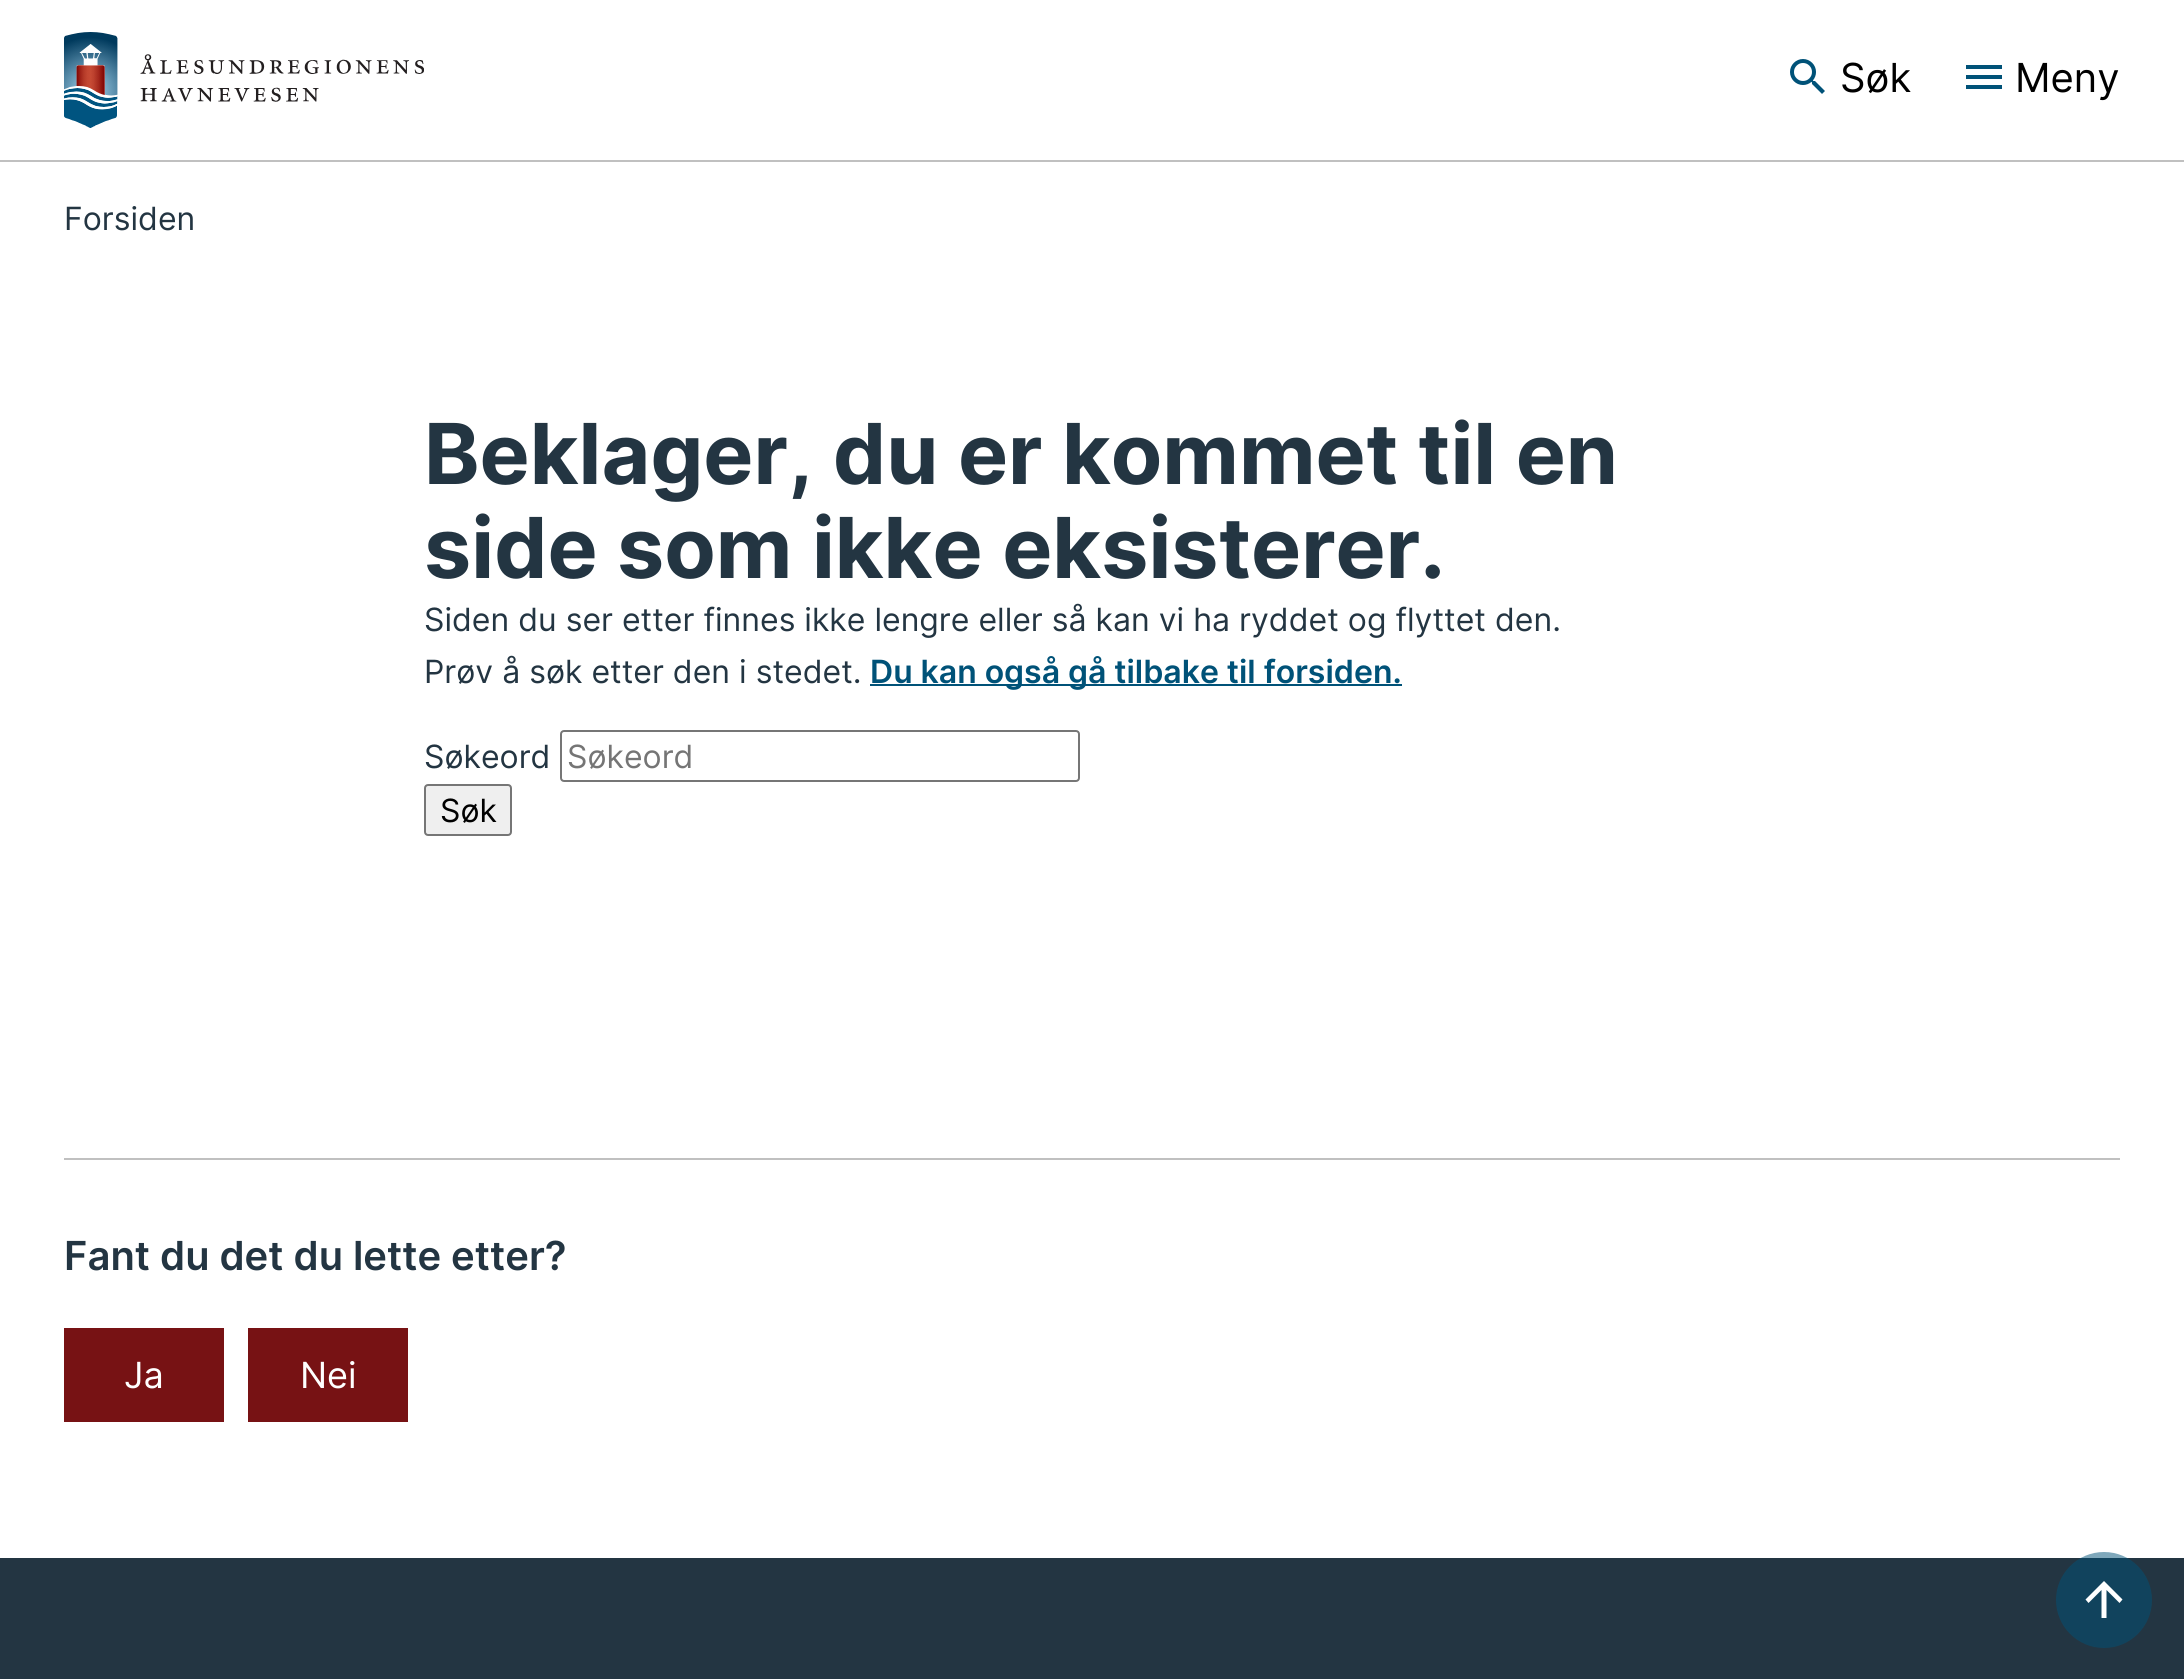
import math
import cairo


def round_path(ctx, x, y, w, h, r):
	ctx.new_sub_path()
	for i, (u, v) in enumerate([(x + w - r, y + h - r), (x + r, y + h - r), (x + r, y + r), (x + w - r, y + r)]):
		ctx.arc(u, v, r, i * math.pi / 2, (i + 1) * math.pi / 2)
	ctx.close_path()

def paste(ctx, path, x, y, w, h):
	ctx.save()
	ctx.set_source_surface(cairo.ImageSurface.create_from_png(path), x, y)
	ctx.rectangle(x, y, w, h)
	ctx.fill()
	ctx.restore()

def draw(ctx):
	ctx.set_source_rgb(1, 1, 1)
	ctx.paint()
	paste(ctx, 'media/1.png', 64, 32, 360, 96)
	paste(ctx, 'media/2.png', 1790, 59, 35, 35)
	ctx.select_font_face('Inter')
	ctx.set_font_size(40)
	ctx.set_source_rgb(0, 0, 0)
	ctx.move_to(1840, 92)
	ctx.show_text('Søk')
	ctx.set_source_rgb(0, 0.322, 0.471)
	ctx.new_path()
	ctx.move_to(1966, 89)
	ctx.line_to(2002, 89)
	ctx.line_to(2002, 85)
	ctx.line_to(1966, 85)
	ctx.close_path()
	ctx.move_to(1966, 79)
	ctx.line_to(2002, 79)
	ctx.line_to(2002, 75)
	ctx.line_to(1966, 75)
	ctx.close_path()
	ctx.move_to(1966, 65)
	ctx.line_to(1966, 69)
	ctx.line_to(2002, 69)
	ctx.line_to(2002, 65)
	ctx.close_path()
	ctx.fill()
	ctx.set_source_rgb(0, 0, 0)
	ctx.move_to(2015, 92)
	ctx.show_text('Meny')
	ctx.set_source_rgb(0.753, 0.753, 0.753)
	ctx.rectangle(0, 160, 2184, 2)
	ctx.fill()
	ctx.set_font_size(32)
	ctx.set_source_rgb(0.137, 0.208, 0.259)
	ctx.move_to(64, 230)
	ctx.show_text('Forsiden')
	ctx.select_font_face('Inter', cairo.FONT_SLANT_NORMAL, cairo.FONT_WEIGHT_BOLD)
	ctx.set_font_size(84)
	ctx.move_to(424, 484)
	ctx.show_text('Beklager, du er kommet til en')
	ctx.move_to(424, 578)
	ctx.show_text('side som ikke eksisterer.')
	ctx.select_font_face('Inter')
	ctx.set_font_size(32)
	ctx.move_to(424, 631)
	ctx.show_text('Siden du ser etter finnes ikke lengre eller så kan vi ha ryddet og flyttet den.')
	ctx.move_to(424, 683)
	ctx.show_text('Prøv å søk etter den i stedet.')
	ctx.set_source_rgb(0, 0.322, 0.471)
	ctx.rectangle(870, 684, 532, 2)
	ctx.fill()
	ctx.select_font_face('Inter SemiBold')
	ctx.move_to(870, 683)
	ctx.show_text('Du kan også gå tilbake til forsiden.')
	ctx.select_font_face('Inter')
	ctx.set_source_rgb(0.137, 0.208, 0.259)
	ctx.move_to(424, 768)
	ctx.show_text('Søkeord')
	round_path(ctx, 561, 731, 518, 50, 3)
	ctx.set_source_rgb(0.463, 0.463, 0.463)
	ctx.stroke()
	ctx.set_source_rgb(0.459, 0.459, 0.459)
	ctx.move_to(567, 768)
	ctx.show_text('Søkeord')
	ctx.set_source_rgb(0.937, 0.937, 0.937)
	round_path(ctx, 425, 785, 86, 50, 3)
	ctx.fill_preserve()
	ctx.set_source_rgb(0.463, 0.463, 0.463)
	ctx.stroke()
	ctx.set_source_rgb(0, 0, 0)
	ctx.move_to(440, 822)
	ctx.show_text('Søk')
	ctx.set_source_rgb(0.753, 0.753, 0.753)
	ctx.rectangle(64, 1158, 2056, 2)
	ctx.fill()
	ctx.select_font_face('Inter SemiBold')
	ctx.set_font_size(40)
	ctx.set_source_rgb(0.137, 0.208, 0.259)
	ctx.move_to(64, 1270)
	ctx.show_text('Fant du det du lette etter?')
	ctx.set_source_rgb(0.467, 0.071, 0.082)
	ctx.rectangle(64, 1328, 160, 94)
	ctx.fill()
	ctx.select_font_face('Inter')
	ctx.set_font_size(36)
	ctx.set_source_rgb(1, 1, 1)
	ctx.move_to(124, 1388)
	ctx.show_text('Ja')
	ctx.set_source_rgb(0.467, 0.071, 0.082)
	ctx.rectangle(248, 1328, 160, 94)
	ctx.fill()
	ctx.set_source_rgb(1, 1, 1)
	ctx.move_to(300, 1388)
	ctx.show_text('Nei')
	ctx.set_source_rgb(0.137, 0.208, 0.259)
	ctx.rectangle(0, 1558, 2184, 121)
	ctx.fill()
	ctx.set_source_rgba(0, 0.322, 0.471, 0.5)
	ctx.arc(2104, 1600, 48, 0, 2 * math.pi)
	ctx.fill()
	ctx.set_source_rgb(1, 1, 1)
	ctx.new_path()
	ctx.move_to(2085.5, 1599.5)
	ctx.line_to(2088.5, 1603)
	ctx.line_to(2101.5, 1590)
	ctx.line_to(2101.5, 1618)
	ctx.line_to(2106.5, 1618)
	ctx.line_to(2106.5, 1590)
	ctx.line_to(2119.5, 1603)
	ctx.line_to(2122.5, 1599.5)
	ctx.line_to(2104, 1581)
	ctx.close_path()
	ctx.fill()


surface = cairo.ImageSurface(cairo.FORMAT_RGB24, 2184, 1679)
ctx = cairo.Context(surface)
options = cairo.FontOptions()
options.set_hint_metrics(cairo.HINT_METRICS_OFF)
options.set_hint_style(cairo.HINT_STYLE_NONE)
ctx.set_font_options(options)
ctx.set_miter_limit(4)
draw(ctx)
surface.write_to_png('image.png')
